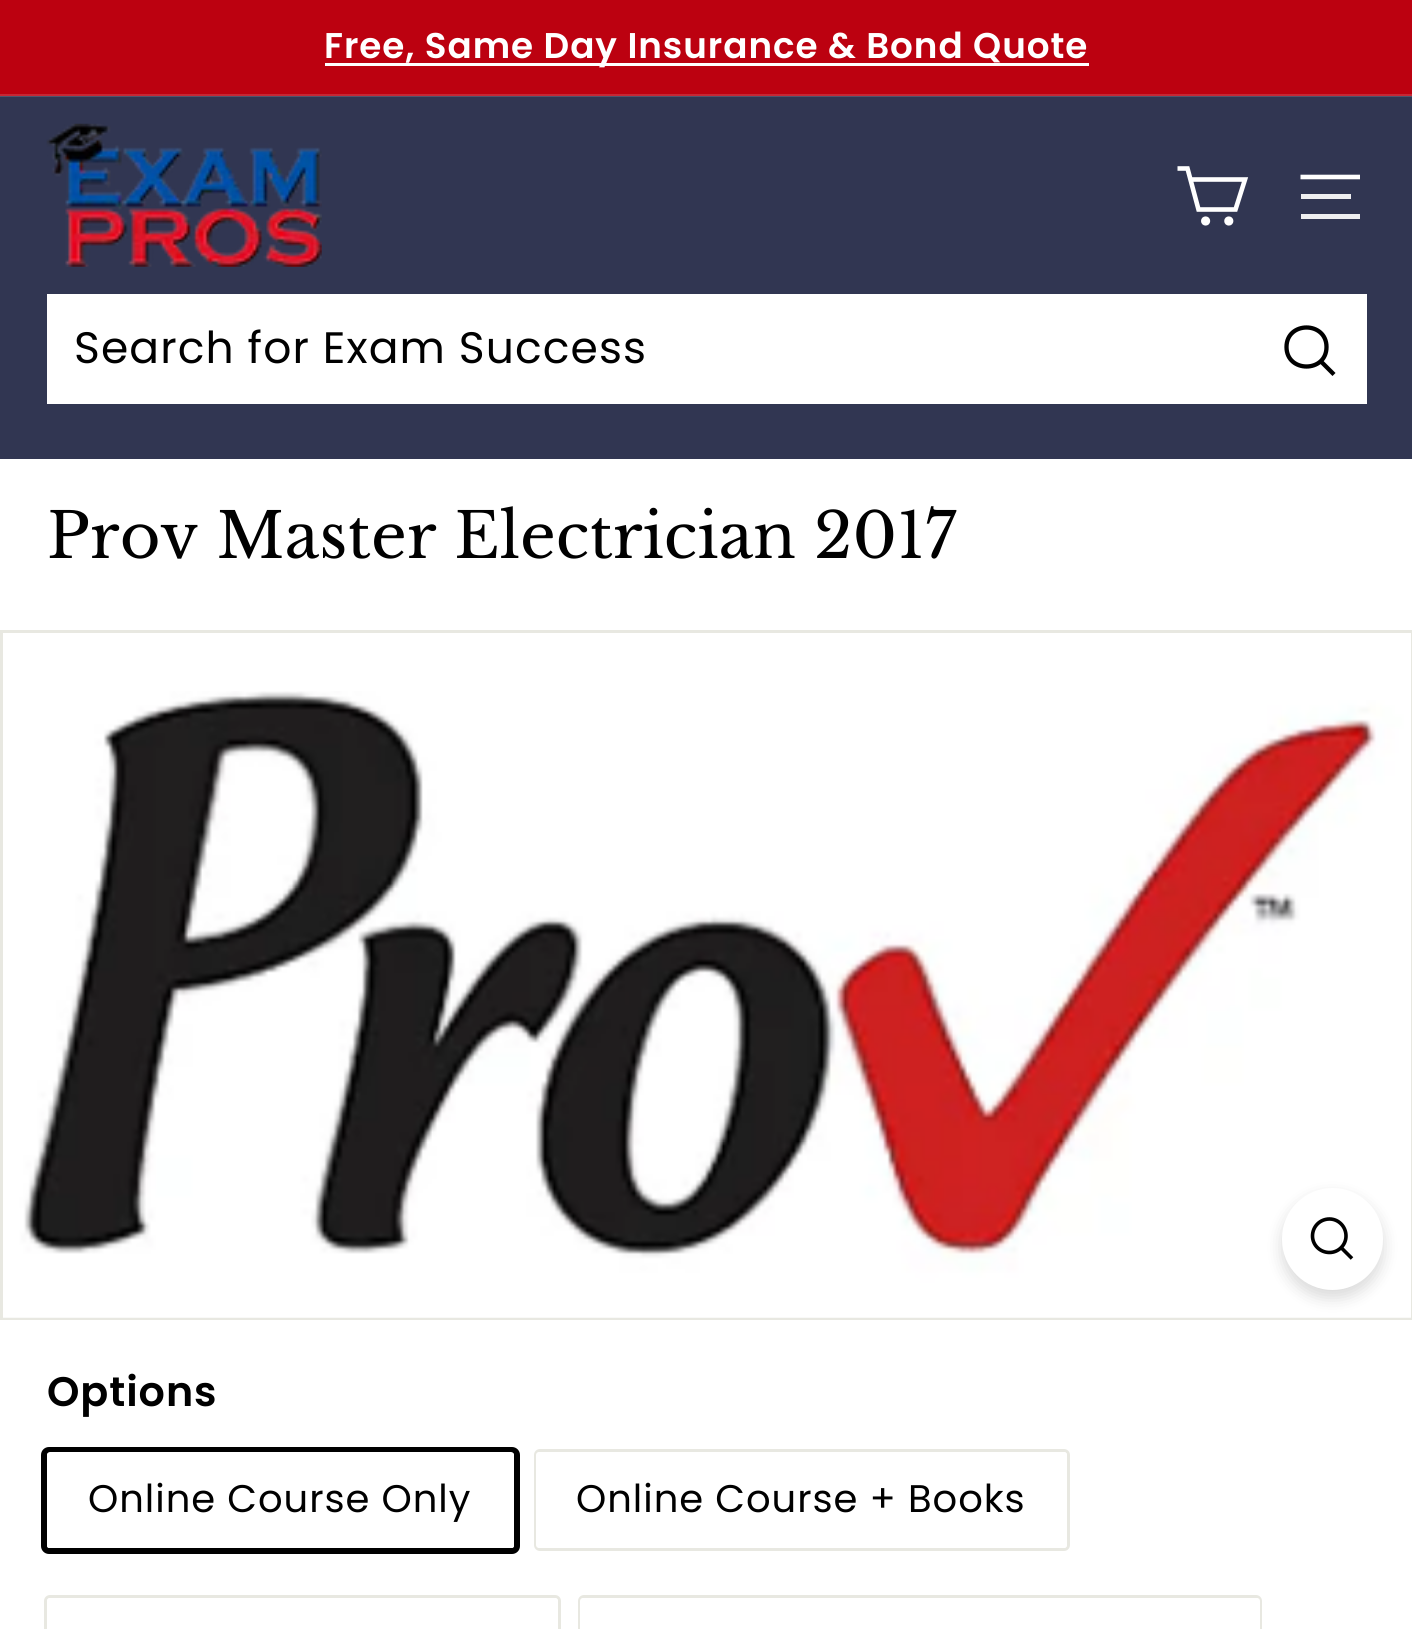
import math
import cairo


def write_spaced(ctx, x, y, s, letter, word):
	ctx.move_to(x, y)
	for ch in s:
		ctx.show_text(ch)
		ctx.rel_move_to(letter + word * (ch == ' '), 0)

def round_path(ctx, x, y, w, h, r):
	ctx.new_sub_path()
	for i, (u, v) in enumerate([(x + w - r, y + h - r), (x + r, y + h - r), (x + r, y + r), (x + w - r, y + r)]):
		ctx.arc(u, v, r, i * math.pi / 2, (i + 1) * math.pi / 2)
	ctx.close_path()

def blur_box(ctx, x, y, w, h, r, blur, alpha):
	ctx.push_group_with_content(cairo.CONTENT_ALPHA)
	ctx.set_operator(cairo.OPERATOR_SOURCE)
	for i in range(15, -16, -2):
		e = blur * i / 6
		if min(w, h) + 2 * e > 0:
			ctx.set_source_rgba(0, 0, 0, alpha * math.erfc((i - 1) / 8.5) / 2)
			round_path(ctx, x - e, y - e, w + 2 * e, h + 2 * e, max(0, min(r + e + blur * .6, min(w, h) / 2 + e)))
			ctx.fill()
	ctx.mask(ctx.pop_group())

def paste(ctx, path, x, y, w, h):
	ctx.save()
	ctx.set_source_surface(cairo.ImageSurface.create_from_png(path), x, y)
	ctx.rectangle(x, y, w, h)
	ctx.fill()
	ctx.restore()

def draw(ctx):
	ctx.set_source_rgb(1, 1, 1)
	ctx.paint()
	ctx.set_source_rgb(0.737, 0.004, 0.063)
	ctx.rectangle(0, 0, 1412, 94)
	ctx.fill()
	ctx.set_source_rgb(0.776, 0.153, 0.204)
	ctx.rectangle(0, 94, 1412, 2)
	ctx.fill()
	ctx.set_source_rgb(1, 1, 1)
	ctx.rectangle(325, 63, 764, 3)
	ctx.fill()
	ctx.select_font_face('Poppins SemiBold')
	ctx.set_font_size(35.75)
	write_spaced(ctx, 324, 58, 'Free, Same Day Insurance & Bond Quote', 0.95, 0)
	ctx.set_source_rgb(0.192, 0.212, 0.322)
	ctx.rectangle(0, 97, 1412, 197)
	ctx.fill()
	ctx.set_source_rgb(0.314, 0.329, 0.424)
	ctx.rectangle(0, 96, 1412, 1)
	ctx.fill()
	paste(ctx, 'media/1.png', 46, 123, 276, 144)
	ctx.new_path()
	ctx.move_to(1190.5, 179.5)
	ctx.line_to(1245, 179.5)
	ctx.line_to(1235.5, 209.5)
	ctx.line_to(1198.5, 209.5)
	ctx.line_to(1187.5, 168.5)
	ctx.line_to(1177.5, 168.5)
	ctx.set_source_rgb(1, 1, 1)
	ctx.set_line_width(4.6)
	ctx.stroke()
	ctx.arc(1205.6, 221, 2.3, 0, 2 * math.pi)
	ctx.stroke()
	ctx.arc(1228.8, 221, 2.3, 0, 2 * math.pi)
	ctx.stroke()
	ctx.new_path()
	ctx.move_to(1300.5, 177)
	ctx.line_to(1360, 177)
	ctx.stroke()
	ctx.set_source_rgb(0.937, 0.937, 0.945)
	ctx.rectangle(1301, 194, 50, 5)
	ctx.fill()
	ctx.rectangle(1301, 214, 59, 5)
	ctx.fill()
	ctx.set_source_rgb(0.192, 0.212, 0.322)
	ctx.new_path()
	ctx.move_to(0, 294)
	ctx.line_to(0, 459)
	ctx.line_to(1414, 459)
	ctx.line_to(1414, 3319)
	ctx.line_to(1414, 294)
	ctx.close_path()
	ctx.fill()
	ctx.set_source_rgb(1, 1, 1)
	ctx.rectangle(47, 294, 1320, 110)
	ctx.fill()
	ctx.select_font_face('Poppins')
	ctx.set_font_size(44)
	ctx.set_source_rgb(0, 0, 0)
	write_spaced(ctx, 74, 363, 'Search for Exam Success', 1.1, 0)
	ctx.new_path()
	ctx.move_to(1326.5, 347)
	ctx.curve_to(1326.5, 373, 1286.5, 373, 1286.5, 347)
	ctx.curve_to(1286.5, 321, 1326.5, 321, 1326.5, 347)
	ctx.close_path()
	ctx.move_to(1334, 374.5)
	ctx.line_to(1321, 361.5)
	ctx.set_line_width(4.3)
	ctx.stroke()
	ctx.select_font_face('Libre Baskerville')
	ctx.set_font_size(62.4)
	ctx.move_to(47, 558)
	ctx.show_text('Prov Master Electrician 2017')
	ctx.rectangle(1.5, 631.5, 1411, 687)
	ctx.set_source_rgb(0.91, 0.91, 0.882)
	ctx.set_line_width(3)
	ctx.stroke()
	paste(ctx, 'media/2.png', 3, 691, 1408, 627)
	ctx.set_source_rgb(0, 0, 0)
	blur_box(ctx, 1282, 1196, 101, 102, 50.5, 8, 0.15)
	ctx.set_source_rgb(1, 1, 1)
	round_path(ctx, 1282, 1188, 101, 102, 50.5)
	ctx.fill()
	ctx.new_path()
	ctx.move_to(1346, 1236)
	ctx.curve_to(1346, 1245, 1338.5, 1252.5, 1329.5, 1252.5)
	ctx.curve_to(1320, 1252.5, 1312.5, 1245, 1312.5, 1236)
	ctx.curve_to(1312.5, 1226.5, 1320, 1219, 1329.5, 1219)
	ctx.curve_to(1338.5, 1219, 1346, 1226.5, 1346, 1236)
	ctx.close_path()
	ctx.move_to(1352, 1258.5)
	ctx.line_to(1341.5, 1248)
	ctx.set_source_rgb(0, 0, 0)
	ctx.set_line_width(3.6)
	ctx.stroke()
	ctx.select_font_face('Poppins SemiBold')
	ctx.set_font_size(41.25)
	write_spaced(ctx, 47, 1406, 'Options', 0.95, 0)
	round_path(ctx, 44, 1450, 473, 101, 5)
	ctx.set_line_width(6)
	ctx.stroke()
	ctx.set_source_rgb(1, 1, 1)
	round_path(ctx, 47, 1452, 467, 96, 3)
	ctx.fill()
	ctx.select_font_face('Poppins')
	ctx.set_font_size(38.5)
	ctx.set_source_rgb(0, 0, 0)
	write_spaced(ctx, 88, 1512, 'Online Course Only', 0.95, 0)
	round_path(ctx, 535.5, 1450.5, 533, 99, 4.5)
	ctx.set_source_rgb(0.91, 0.91, 0.882)
	ctx.set_line_width(3)
	ctx.stroke()
	ctx.set_source_rgb(1, 1, 1)
	round_path(ctx, 536, 1452, 531, 96, 3)
	ctx.fill()
	ctx.set_source_rgb(0, 0, 0)
	write_spaced(ctx, 576, 1512, 'Online Course + Books', 0.95, 0)
	round_path(ctx, 45.5, 1596.5, 514, 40, 4.5)
	ctx.set_source_rgb(0.91, 0.91, 0.882)
	ctx.stroke()
	ctx.set_source_rgb(1, 1, 1)
	round_path(ctx, 47, 1598, 511, 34, 3)
	ctx.fill()
	round_path(ctx, 579.5, 1596.5, 681, 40, 4.5)
	ctx.set_source_rgb(0.91, 0.91, 0.882)
	ctx.stroke()
	ctx.set_source_rgb(1, 1, 1)
	round_path(ctx, 580, 1598, 680, 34, 3)
	ctx.fill()


surface = cairo.ImageSurface(cairo.FORMAT_RGB24, 1412, 1629)
ctx = cairo.Context(surface)
options = cairo.FontOptions()
options.set_hint_metrics(cairo.HINT_METRICS_OFF)
options.set_hint_style(cairo.HINT_STYLE_NONE)
ctx.set_font_options(options)
ctx.set_miter_limit(4)
draw(ctx)
surface.write_to_png('image.png')
